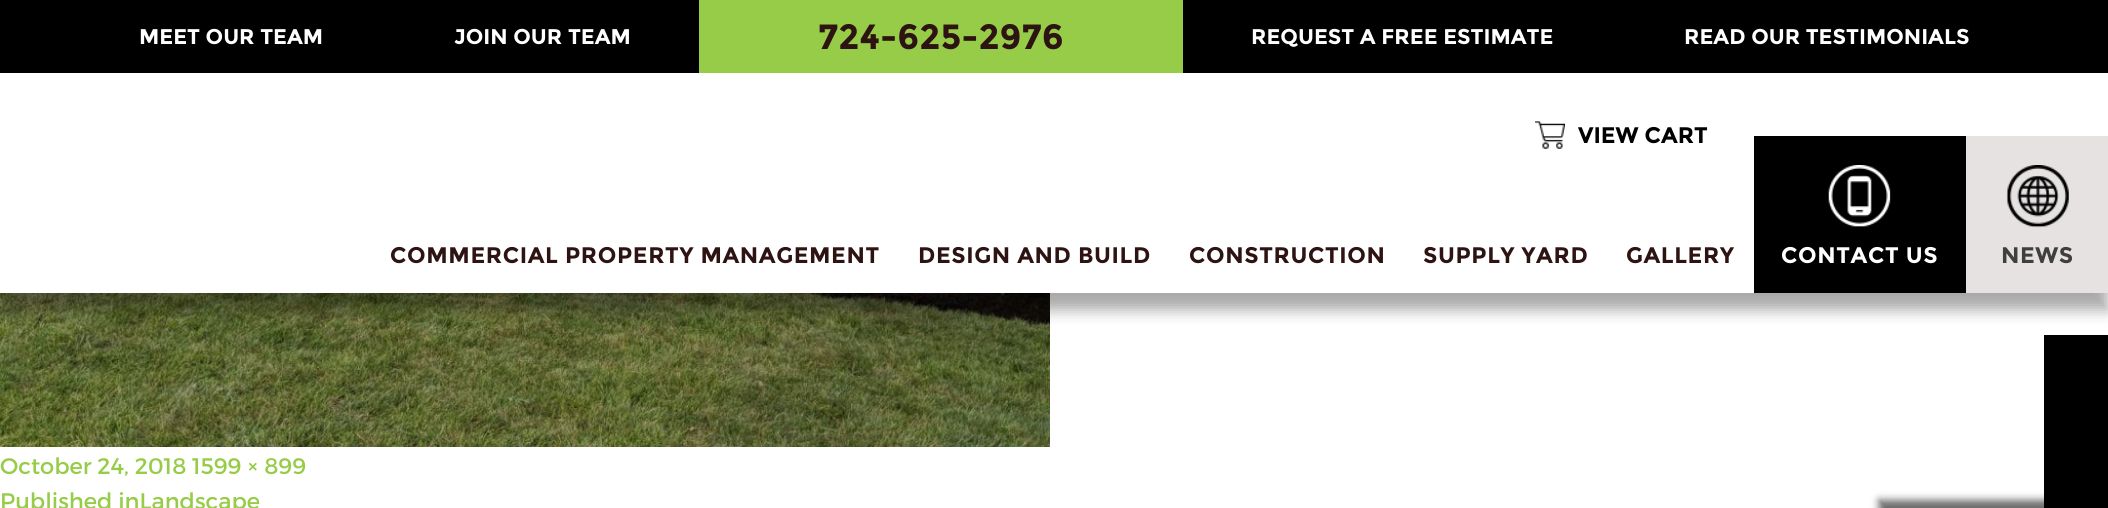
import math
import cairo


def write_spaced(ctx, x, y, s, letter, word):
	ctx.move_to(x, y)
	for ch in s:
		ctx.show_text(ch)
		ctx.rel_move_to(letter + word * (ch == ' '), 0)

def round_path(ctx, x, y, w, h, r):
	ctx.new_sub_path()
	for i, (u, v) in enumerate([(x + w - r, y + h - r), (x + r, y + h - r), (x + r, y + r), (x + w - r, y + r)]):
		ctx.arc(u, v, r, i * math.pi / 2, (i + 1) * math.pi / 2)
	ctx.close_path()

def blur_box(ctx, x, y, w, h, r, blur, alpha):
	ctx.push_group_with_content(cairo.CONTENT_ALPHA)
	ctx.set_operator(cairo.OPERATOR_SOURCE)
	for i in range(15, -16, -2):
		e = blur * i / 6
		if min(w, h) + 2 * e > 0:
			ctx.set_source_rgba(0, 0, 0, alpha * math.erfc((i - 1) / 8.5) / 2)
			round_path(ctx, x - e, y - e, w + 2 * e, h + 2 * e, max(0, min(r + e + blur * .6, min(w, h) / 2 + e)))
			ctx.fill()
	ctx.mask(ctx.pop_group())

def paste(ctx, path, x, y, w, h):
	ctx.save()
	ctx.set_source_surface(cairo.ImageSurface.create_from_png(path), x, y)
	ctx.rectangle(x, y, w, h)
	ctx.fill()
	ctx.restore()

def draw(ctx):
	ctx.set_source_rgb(1, 1, 1)
	ctx.paint()
	ctx.set_source_rgb(0, 0, 0)
	ctx.rectangle(0, 0, 2108, 73)
	ctx.fill()
	ctx.select_font_face('Montserrat', cairo.FONT_SLANT_NORMAL, cairo.FONT_WEIGHT_BOLD)
	ctx.set_font_size(21.25)
	ctx.set_source_rgb(1, 1, 1)
	ctx.move_to(139, 44)
	ctx.show_text('MEET OUR TEAM')
	ctx.move_to(454, 44)
	ctx.show_text('JOIN OUR TEAM')
	ctx.set_source_rgb(0.592, 0.8, 0.282)
	ctx.rectangle(699, 0, 484, 73)
	ctx.fill()
	ctx.set_font_size(35)
	ctx.set_source_rgb(0.176, 0.075, 0.071)
	ctx.move_to(818, 49)
	ctx.show_text('724-625-2976')
	ctx.set_font_size(21.25)
	ctx.set_source_rgb(1, 1, 1)
	ctx.move_to(1251, 44)
	ctx.show_text('REQUEST A FREE ESTIMATE')
	ctx.move_to(1684, 44)
	ctx.show_text('READ OUR TESTIMONIALS')
	paste(ctx, 'media/4.png', 0, 293, 1050, 154)
	ctx.set_source_rgb(0, 0, 0)
	blur_box(ctx, -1, 90, 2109, 220, 0, 7.5, 0.34)
	ctx.set_source_rgb(1, 1, 1)
	ctx.rectangle(0, 76, 2108, 217)
	ctx.fill()
	paste(ctx, 'media/1.png', 1535, 121, 30, 28)
	ctx.set_font_size(22.5)
	ctx.set_source_rgb(0, 0, 0)
	ctx.move_to(1578, 143)
	ctx.show_text('VIEW CART')
	ctx.set_source_rgb(0.176, 0.075, 0.071)
	for x, y, s in [
		(390, 263, 'COMMERCIAL PROPERTY MANAGEMENT'),
		(918, 263, 'DESIGN AND BUILD'),
		(1189, 263, 'CONSTRUCTION'),
		(1423, 263, 'SUPPLY YARD'),
		(1626, 263, 'GALLERY'),
	]:
		write_spaced(ctx, x, y, s, 0.6, 0)
	ctx.set_source_rgb(0, 0, 0)
	ctx.rectangle(1754, 136, 212, 157)
	ctx.fill()
	paste(ctx, 'media/2.png', 1828, 165, 63, 62)
	ctx.set_source_rgb(1, 1, 1)
	write_spaced(ctx, 1781, 263, 'CONTACT US', 0.6, 0)
	ctx.set_source_rgb(0.902, 0.886, 0.886)
	ctx.rectangle(1966, 136, 142, 157)
	ctx.fill()
	paste(ctx, 'media/3.png', 2006, 165, 63, 63)
	ctx.set_source_rgb(0.247, 0.247, 0.247)
	write_spaced(ctx, 2001, 263, 'NEWS', 0.6, 0)
	ctx.select_font_face('Montserrat')
	ctx.set_source_rgb(0.592, 0.8, 0.282)
	ctx.move_to(0, 474)
	ctx.show_text('October 24, 2018 1599 × 899')
	ctx.move_to(0, 509)
	ctx.show_text('Published inLandscape')
	ctx.set_source_rgb(0.42, 0.42, 0.42)
	blur_box(ctx, 1879, 500, 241, 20, 0, 4, 1)
	ctx.set_source_rgb(0, 0, 0)
	ctx.rectangle(2044, 335, 64, 173)
	ctx.fill()


surface = cairo.ImageSurface(cairo.FORMAT_RGB24, 2108, 508)
ctx = cairo.Context(surface)
options = cairo.FontOptions()
options.set_hint_metrics(cairo.HINT_METRICS_OFF)
options.set_hint_style(cairo.HINT_STYLE_NONE)
ctx.set_font_options(options)
ctx.set_miter_limit(4)
draw(ctx)
surface.write_to_png('image.png')
